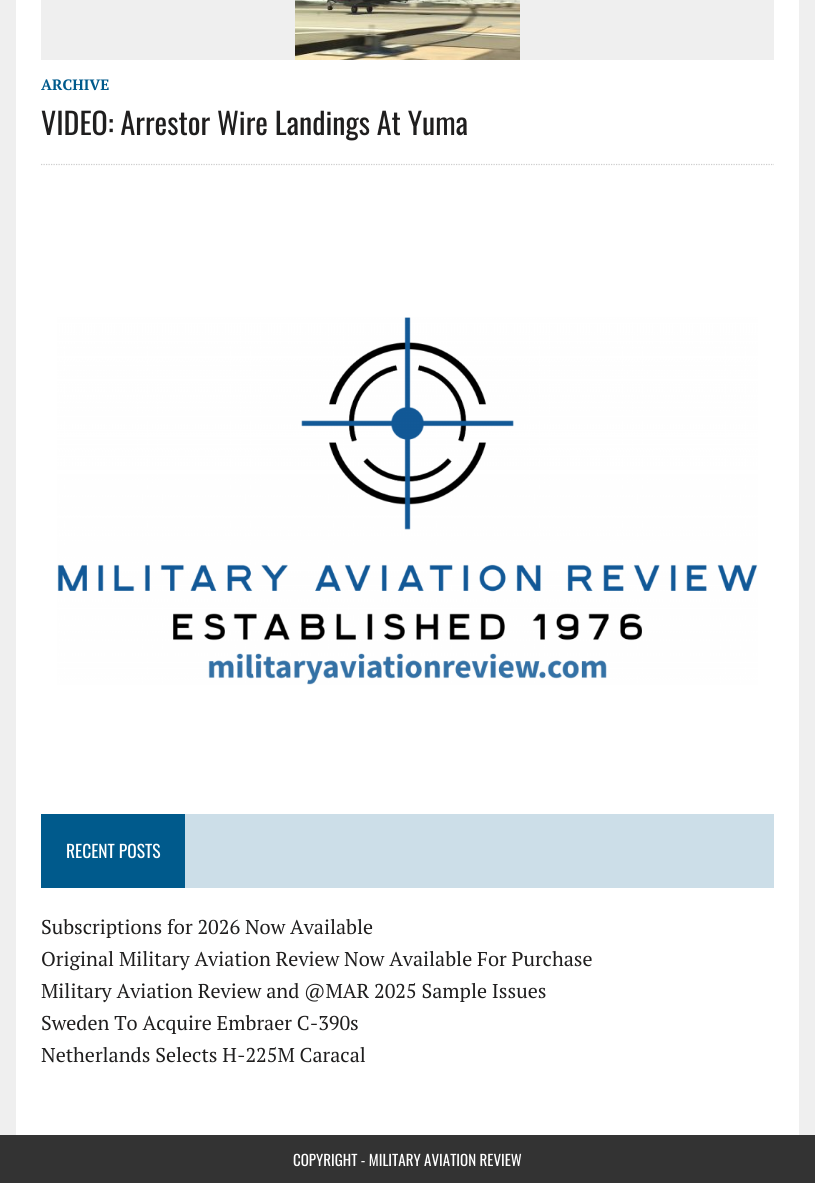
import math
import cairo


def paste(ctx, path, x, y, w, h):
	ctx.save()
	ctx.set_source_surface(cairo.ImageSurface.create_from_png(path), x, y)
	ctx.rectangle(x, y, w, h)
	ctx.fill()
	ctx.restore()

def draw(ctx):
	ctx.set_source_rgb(0.937, 0.937, 0.937)
	ctx.paint()
	ctx.set_source_rgb(1, 1, 1)
	ctx.rectangle(16, 0, 783, 1135)
	ctx.fill()
	ctx.set_source_rgb(0.937, 0.937, 0.937)
	ctx.rectangle(41, 0, 733, 60)
	ctx.fill()
	paste(ctx, 'media/1.png', 295, 0, 225, 60)
	ctx.select_font_face('PT Serif', cairo.FONT_SLANT_NORMAL, cairo.FONT_WEIGHT_BOLD)
	ctx.set_font_size(15)
	ctx.set_source_rgb(0, 0.353, 0.549)
	ctx.move_to(41, 90)
	ctx.show_text('ARCHIVE')
	ctx.select_font_face('Oswald')
	ctx.set_font_size(30)
	ctx.set_source_rgb(0.122, 0.118, 0.118)
	ctx.move_to(41, 135)
	ctx.show_text('VIDEO: Arrestor Wire Landings At Yuma')
	ctx.new_path()
	ctx.move_to(41, 164.5)
	ctx.line_to(774, 164.5)
	ctx.set_source_rgb(0.804, 0.804, 0.804)
	ctx.set_line_width(1.2)
	ctx.set_dash([1.25, 1.25])
	ctx.stroke()
	paste(ctx, 'media/2.png', 57, 317, 701, 368)
	ctx.set_source_rgb(0.8, 0.871, 0.91)
	ctx.rectangle(185, 814, 589, 74)
	ctx.fill()
	ctx.set_source_rgb(0, 0.353, 0.549)
	ctx.rectangle(41, 814, 144, 74)
	ctx.fill()
	ctx.set_font_size(17.5)
	ctx.set_source_rgb(1, 1, 1)
	ctx.move_to(66, 858)
	ctx.show_text('RECENT POSTS')
	ctx.select_font_face('PT Serif')
	ctx.set_font_size(20)
	ctx.set_source_rgb(0.122, 0.118, 0.118)
	for x, y, s in [
		(41, 934, 'Subscriptions for 2026 Now Available'),
		(41, 966, 'Original Military Aviation Review Now Available For Purchase'),
		(41, 998, 'Military Aviation Review and @MAR 2025 Sample Issues'),
		(41, 1030, 'Sweden To Acquire Embraer C-390s'),
		(41, 1062, 'Netherlands Selects H-225M Caracal'),
	]:
		ctx.move_to(x, y)
		ctx.show_text(s)
	ctx.set_source_rgb(0.2, 0.2, 0.2)
	ctx.rectangle(0, 1135, 815, 48)
	ctx.fill()
	ctx.select_font_face('Oswald')
	ctx.set_font_size(15)
	ctx.set_source_rgb(1, 1, 1)
	ctx.move_to(293, 1166)
	ctx.show_text('COPYRIGHT - MILITARY AVIATION REVIEW')


surface = cairo.ImageSurface(cairo.FORMAT_RGB24, 815, 1183)
ctx = cairo.Context(surface)
options = cairo.FontOptions()
options.set_hint_metrics(cairo.HINT_METRICS_OFF)
options.set_hint_style(cairo.HINT_STYLE_NONE)
ctx.set_font_options(options)
ctx.set_miter_limit(4)
draw(ctx)
surface.write_to_png('image.png')
